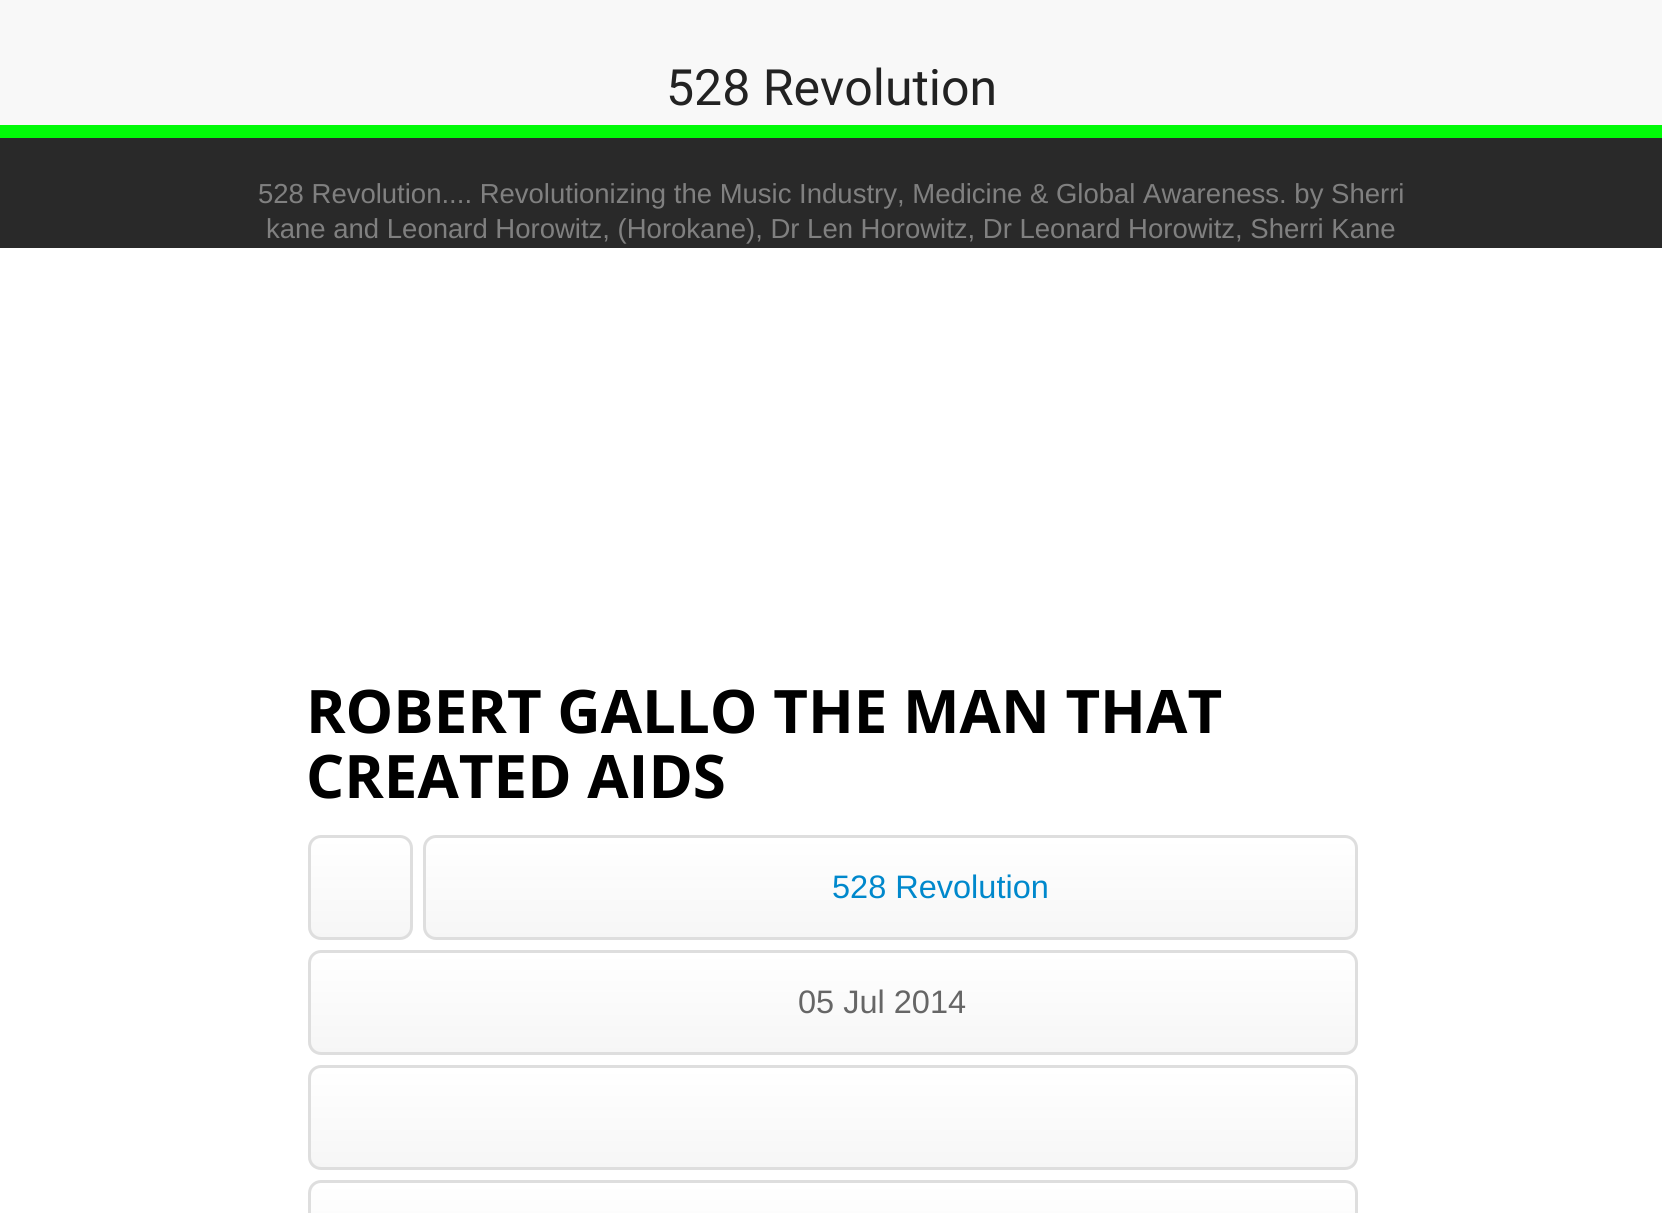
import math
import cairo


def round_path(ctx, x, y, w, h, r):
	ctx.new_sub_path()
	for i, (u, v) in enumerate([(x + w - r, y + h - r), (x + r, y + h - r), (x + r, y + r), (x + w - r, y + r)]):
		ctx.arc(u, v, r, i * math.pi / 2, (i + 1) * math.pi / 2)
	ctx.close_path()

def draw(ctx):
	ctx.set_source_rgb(1, 1, 1)
	ctx.paint()
	ctx.set_source_rgb(0.969, 0.969, 0.969)
	ctx.rectangle(0, 0, 1662, 125)
	ctx.fill()
	ctx.select_font_face('Roboto')
	ctx.set_font_size(50)
	ctx.set_source_rgb(0.133, 0.133, 0.133)
	ctx.move_to(666, 105)
	ctx.show_text('528 Revolution')
	ctx.set_source_rgb(0.004, 0.984, 0.035)
	ctx.rectangle(0, 125, 1662, 13)
	ctx.fill()
	ctx.set_source_rgb(0.161, 0.161, 0.161)
	ctx.rectangle(0, 138, 1662, 110)
	ctx.fill()
	ctx.select_font_face('Liberation Sans')
	ctx.set_font_size(27.5)
	ctx.set_source_rgb(0.502, 0.502, 0.502)
	ctx.move_to(258, 203)
	ctx.show_text('528 Revolution.... Revolutionizing the Music Industry, Medicine & Global Awareness. by Sherri')
	ctx.move_to(266, 238)
	ctx.show_text('kane and Leonard Horowitz, (Horokane), Dr Len Horowitz, Dr Leonard Horowitz, Sherri Kane')
	ctx.select_font_face('Open Sans', cairo.FONT_SLANT_NORMAL, cairo.FONT_WEIGHT_BOLD)
	ctx.set_font_size(60)
	ctx.set_source_rgb(0, 0, 0)
	ctx.move_to(306, 733)
	ctx.show_text('ROBERT GALLO THE MAN THAT')
	ctx.move_to(306, 798)
	ctx.show_text('CREATED AIDS')
	ctx.save()
	round_path(ctx, 308, 835, 105, 105, 13)
	ctx.clip()
	gradient = cairo.LinearGradient(360, 838, 360, 938)
	gradient.add_color_stop_rgba(0, 1, 1, 1, 1)
	gradient.add_color_stop_rgba(1, 0.965, 0.965, 0.965, 1)
	ctx.set_source(gradient)
	ctx.rectangle(308, 838, 105, 100)
	ctx.fill()
	ctx.restore()
	round_path(ctx, 309.5, 836.5, 102, 102, 11.5)
	ctx.set_source_rgb(0.871, 0.871, 0.871)
	ctx.set_line_width(3)
	ctx.stroke()
	ctx.save()
	round_path(ctx, 423, 835, 935, 105, 13)
	ctx.clip()
	gradient = cairo.LinearGradient(890, 838, 890, 938)
	gradient.add_color_stop_rgba(0, 1, 1, 1, 1)
	gradient.add_color_stop_rgba(1, 0.965, 0.965, 0.965, 1)
	ctx.set_source(gradient)
	ctx.rectangle(423, 838, 935, 100)
	ctx.fill()
	ctx.restore()
	round_path(ctx, 424.5, 836.5, 932, 102, 11.5)
	ctx.stroke()
	ctx.select_font_face('Liberation Sans')
	ctx.set_font_size(32.5)
	ctx.set_source_rgb(0, 0.533, 0.8)
	ctx.move_to(832, 898)
	ctx.show_text('528 Revolution')
	ctx.save()
	round_path(ctx, 308, 950, 1050, 105, 13)
	ctx.clip()
	gradient = cairo.LinearGradient(833, 953, 833, 1053)
	gradient.add_color_stop_rgba(0, 1, 1, 1, 1)
	gradient.add_color_stop_rgba(1, 0.965, 0.965, 0.965, 1)
	ctx.set_source(gradient)
	ctx.rectangle(308, 953, 1050, 100)
	ctx.fill()
	ctx.restore()
	round_path(ctx, 309.5, 951.5, 1047, 102, 11.5)
	ctx.set_source_rgb(0.871, 0.871, 0.871)
	ctx.stroke()
	ctx.set_source_rgb(0.4, 0.4, 0.4)
	ctx.move_to(798, 1013)
	ctx.show_text('05 Jul 2014')
	ctx.save()
	round_path(ctx, 308, 1065, 1050, 105, 13)
	ctx.clip()
	gradient = cairo.LinearGradient(833, 1068, 833, 1168)
	gradient.add_color_stop_rgba(0, 1, 1, 1, 1)
	gradient.add_color_stop_rgba(1, 0.965, 0.965, 0.965, 1)
	ctx.set_source(gradient)
	ctx.rectangle(308, 1068, 1050, 100)
	ctx.fill()
	ctx.restore()
	round_path(ctx, 309.5, 1066.5, 1047, 102, 11.5)
	ctx.set_source_rgb(0.871, 0.871, 0.871)
	ctx.stroke()
	ctx.save()
	round_path(ctx, 308, 1180, 1050, 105, 13)
	ctx.clip()
	gradient = cairo.LinearGradient(833, 1183, 833, 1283)
	gradient.add_color_stop_rgba(0, 1, 1, 1, 1)
	gradient.add_color_stop_rgba(1, 0.965, 0.965, 0.965, 1)
	ctx.set_source(gradient)
	ctx.rectangle(308, 1183, 1050, 30)
	ctx.fill()
	ctx.restore()
	round_path(ctx, 309.5, 1181.5, 1047, 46, 11.5)
	ctx.stroke()


surface = cairo.ImageSurface(cairo.FORMAT_RGB24, 1662, 1213)
ctx = cairo.Context(surface)
options = cairo.FontOptions()
options.set_hint_metrics(cairo.HINT_METRICS_OFF)
options.set_hint_style(cairo.HINT_STYLE_NONE)
ctx.set_font_options(options)
ctx.set_miter_limit(4)
draw(ctx)
surface.write_to_png('image.png')
